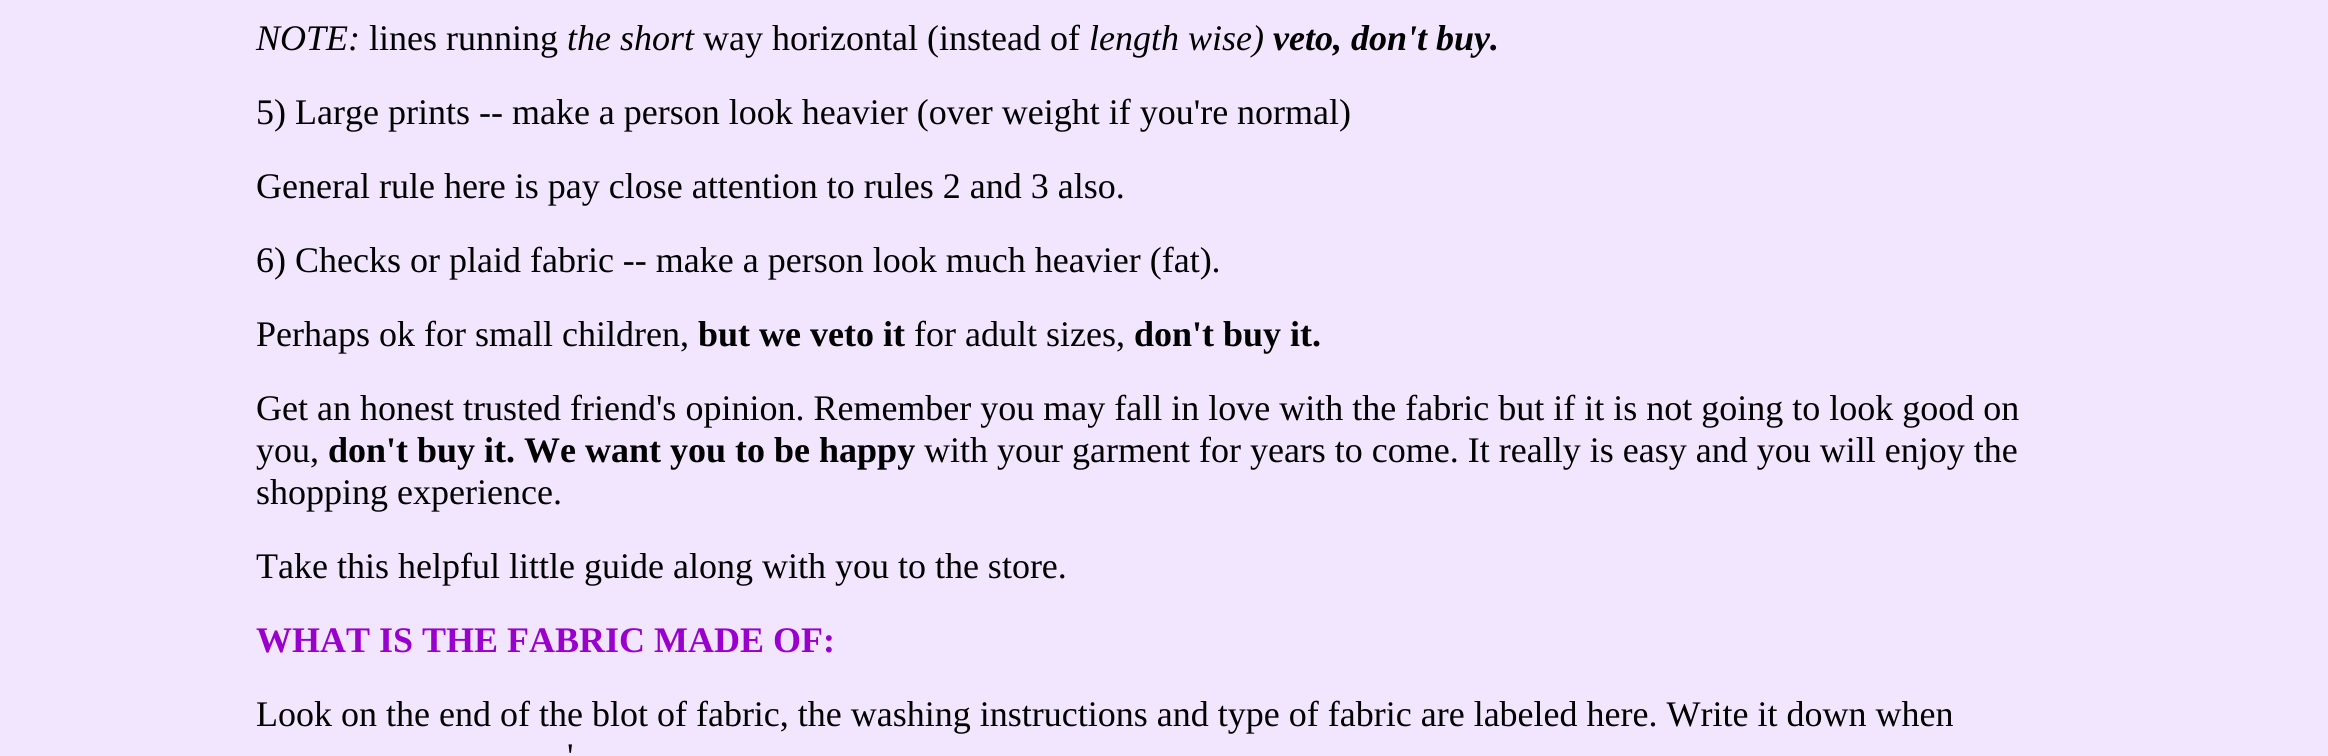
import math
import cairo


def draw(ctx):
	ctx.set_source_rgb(0.949, 0.902, 1)
	ctx.paint()
	ctx.select_font_face('Liberation Serif', cairo.FONT_SLANT_ITALIC)
	ctx.set_font_size(36)
	ctx.set_source_rgb(0, 0, 0)
	ctx.move_to(256, 50)
	ctx.show_text('NOTE:')
	ctx.select_font_face('Liberation Serif')
	ctx.move_to(369, 50)
	ctx.show_text('lines running')
	ctx.select_font_face('Liberation Serif', cairo.FONT_SLANT_ITALIC)
	ctx.move_to(567, 50)
	ctx.show_text('the short')
	ctx.select_font_face('Liberation Serif')
	ctx.move_to(703, 50)
	ctx.show_text('way horizontal (instead of')
	ctx.select_font_face('Liberation Serif', cairo.FONT_SLANT_ITALIC)
	ctx.move_to(1089, 50)
	ctx.show_text('length wise)')
	ctx.select_font_face('Liberation Serif', cairo.FONT_SLANT_ITALIC, cairo.FONT_WEIGHT_BOLD)
	ctx.move_to(1273, 50)
	ctx.show_text('veto, don\'t buy.')
	ctx.select_font_face('Liberation Serif')
	for x, y, s in [
		(256, 124, '5) Large prints -- make a person look heavier (over weight if you\'re normal)'),
		(256, 198, 'General rule here is pay close attention to rules 2 and 3 also.'),
		(256, 272, '6) Checks or plaid fabric -- make a person look much heavier (fat).'),
		(256, 346, 'Perhaps ok for small children,'),
	]:
		ctx.move_to(x, y)
		ctx.show_text(s)
	ctx.select_font_face('Liberation Serif', cairo.FONT_SLANT_NORMAL, cairo.FONT_WEIGHT_BOLD)
	ctx.move_to(698, 346)
	ctx.show_text('but we veto it')
	ctx.select_font_face('Liberation Serif')
	ctx.move_to(914, 346)
	ctx.show_text('for adult sizes,')
	ctx.select_font_face('Liberation Serif', cairo.FONT_SLANT_NORMAL, cairo.FONT_WEIGHT_BOLD)
	ctx.move_to(1134, 346)
	ctx.show_text('don\'t buy it.')
	ctx.select_font_face('Liberation Serif')
	ctx.move_to(256, 420)
	ctx.show_text('Get an honest trusted friend\'s opinion. Remember you may fall in love with the fabric but if it is not going to look good on')
	ctx.move_to(256, 462)
	ctx.show_text('you,')
	ctx.select_font_face('Liberation Serif', cairo.FONT_SLANT_NORMAL, cairo.FONT_WEIGHT_BOLD)
	ctx.move_to(328, 462)
	ctx.show_text('don\'t buy it. We want you to be happy')
	ctx.select_font_face('Liberation Serif')
	for x, y, s in [
		(924, 462, 'with your garment for years to come. It really is easy and you will enjoy the'),
		(256, 504, 'shopping experience.'),
		(256, 578, 'Take this helpful little guide along with you to the store.'),
	]:
		ctx.move_to(x, y)
		ctx.show_text(s)
	ctx.select_font_face('Liberation Serif', cairo.FONT_SLANT_NORMAL, cairo.FONT_WEIGHT_BOLD)
	ctx.set_source_rgb(0.6, 0, 0.8)
	ctx.move_to(256, 652)
	ctx.show_text('WHAT IS THE FABRIC MADE OF:')
	ctx.select_font_face('Liberation Serif')
	ctx.set_source_rgb(0, 0, 0)
	ctx.move_to(256, 726)
	ctx.show_text('Look on the end of the blot of fabric, the washing instructions and type of fabric are labeled here. Write it down when')
	ctx.move_to(567, 768)
	ctx.show_text('\'')


surface = cairo.ImageSurface(cairo.FORMAT_RGB24, 2328, 756)
ctx = cairo.Context(surface)
options = cairo.FontOptions()
options.set_hint_metrics(cairo.HINT_METRICS_OFF)
options.set_hint_style(cairo.HINT_STYLE_NONE)
ctx.set_font_options(options)
ctx.set_miter_limit(4)
draw(ctx)
surface.write_to_png('image.png')
